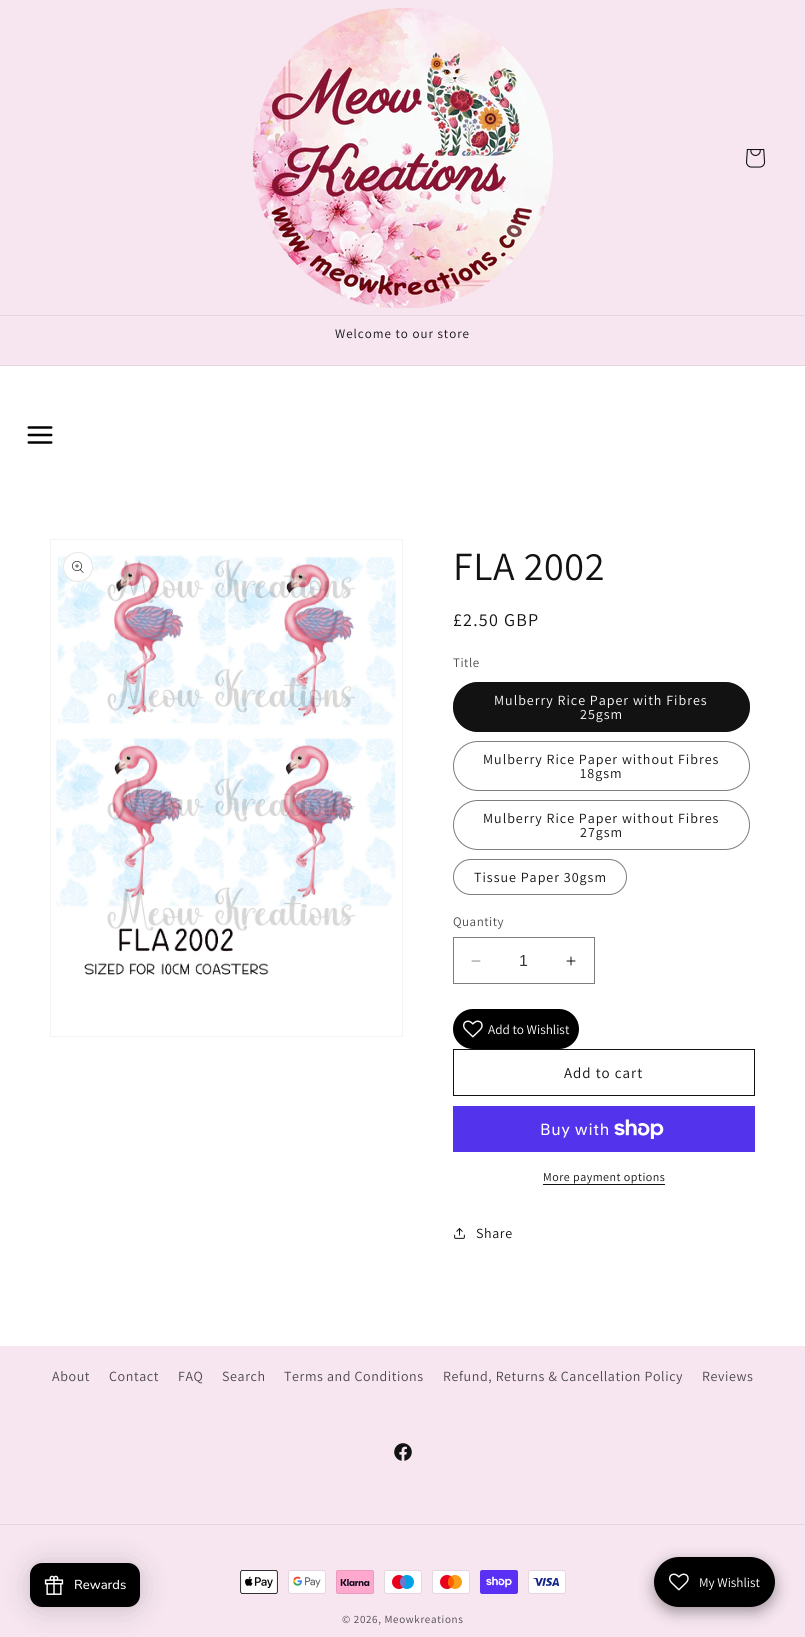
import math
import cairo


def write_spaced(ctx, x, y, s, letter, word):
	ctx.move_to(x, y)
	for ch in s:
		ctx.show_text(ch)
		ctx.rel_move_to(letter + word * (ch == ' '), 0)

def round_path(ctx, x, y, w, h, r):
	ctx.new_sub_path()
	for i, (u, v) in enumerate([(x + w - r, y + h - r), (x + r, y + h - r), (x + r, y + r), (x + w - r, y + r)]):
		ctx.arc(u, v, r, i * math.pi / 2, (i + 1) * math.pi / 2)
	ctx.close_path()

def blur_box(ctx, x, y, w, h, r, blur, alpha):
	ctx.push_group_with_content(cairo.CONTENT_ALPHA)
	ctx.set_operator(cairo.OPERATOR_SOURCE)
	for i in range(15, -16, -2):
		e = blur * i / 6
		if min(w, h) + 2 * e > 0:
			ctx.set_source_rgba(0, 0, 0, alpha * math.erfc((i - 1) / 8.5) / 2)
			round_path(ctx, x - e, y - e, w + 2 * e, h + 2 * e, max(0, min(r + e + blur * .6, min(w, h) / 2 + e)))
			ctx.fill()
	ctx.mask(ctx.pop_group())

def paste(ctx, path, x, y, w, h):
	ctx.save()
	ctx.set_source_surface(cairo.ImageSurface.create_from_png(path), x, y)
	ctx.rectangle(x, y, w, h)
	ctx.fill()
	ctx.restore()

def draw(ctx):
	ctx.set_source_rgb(1, 1, 1)
	ctx.paint()
	ctx.set_source_rgb(0.965, 0.902, 0.941)
	ctx.rectangle(0, 0, 805, 315)
	ctx.fill()
	ctx.set_source_rgb(0.894, 0.835, 0.871)
	ctx.rectangle(0, 315, 805, 1)
	ctx.fill()
	paste(ctx, 'media/1.png', 253, 8, 300, 300)
	paste(ctx, 'media/2.png', 746, 149, 20, 19)
	ctx.set_source_rgb(0.965, 0.902, 0.941)
	ctx.rectangle(0, 316, 805, 49)
	ctx.fill()
	ctx.set_source_rgb(0.894, 0.835, 0.871)
	ctx.rectangle(0, 365, 805, 1)
	ctx.fill()
	ctx.select_font_face('Assistant')
	ctx.set_font_size(13)
	ctx.set_source_rgb(0.071, 0.071, 0.071)
	write_spaced(ctx, 335, 338, 'Welcome to our store', 1, 0)
	paste(ctx, 'media/3.png', 27, 426, 26, 18)
	ctx.rectangle(50.5, 539.5, 352, 497)
	ctx.set_source_rgb(0.953, 0.953, 0.953)
	ctx.set_line_width(1)
	ctx.stroke()
	paste(ctx, 'media/5.png', 56, 555, 340, 420)
	ctx.set_source_rgb(1, 1, 1)
	ctx.arc(78, 567, 15, 0, 2 * math.pi)
	ctx.fill()
	ctx.arc(78, 567, 14.5, 0, 2 * math.pi)
	ctx.set_source_rgba(0.071, 0.071, 0.071, 0.1)
	ctx.stroke()
	paste(ctx, 'media/4.png', 72, 561, 12, 12)
	ctx.set_font_size(40)
	ctx.set_source_rgb(0.071, 0.071, 0.071)
	write_spaced(ctx, 453, 580, 'FLA 2002', 0.6, 0)
	ctx.set_font_size(18)
	write_spaced(ctx, 453, 626, '£2.50 GBP', 1.25, 0)
	ctx.set_font_size(13)
	ctx.set_source_rgb(0.302, 0.302, 0.302)
	write_spaced(ctx, 453, 667, 'Title', 0.5, 0)
	ctx.set_source_rgb(0.071, 0.071, 0.071)
	round_path(ctx, 453, 682, 297, 50, 25)
	ctx.fill()
	round_path(ctx, 453.5, 682.5, 296, 49, 24.5)
	ctx.set_source_rgba(0.071, 0.071, 0.071, 0.55)
	ctx.stroke()
	ctx.set_font_size(14)
	ctx.set_source_rgb(1, 1, 1)
	write_spaced(ctx, 494, 705, 'Mulberry Rice Paper with Fibres', 1, 0)
	write_spaced(ctx, 580, 719, '25gsm', 1, 0)
	round_path(ctx, 453.5, 741.5, 296, 49, 24.5)
	ctx.set_source_rgb(0.49, 0.49, 0.49)
	ctx.stroke()
	ctx.set_source_rgb(0.071, 0.071, 0.071)
	write_spaced(ctx, 483, 764, 'Mulberry Rice Paper without Fibres', 1, 0)
	write_spaced(ctx, 580, 778, '18gsm', 1, 0)
	round_path(ctx, 453.5, 800.5, 296, 49, 24.5)
	ctx.set_source_rgb(0.49, 0.49, 0.49)
	ctx.stroke()
	ctx.set_source_rgb(0.071, 0.071, 0.071)
	write_spaced(ctx, 483, 823, 'Mulberry Rice Paper without Fibres', 1, 0)
	write_spaced(ctx, 580, 837, '27gsm', 1, 0)
	round_path(ctx, 453.5, 859.5, 173, 35, 17.5)
	ctx.set_source_rgb(0.49, 0.49, 0.49)
	ctx.stroke()
	ctx.set_source_rgb(0.071, 0.071, 0.071)
	write_spaced(ctx, 474, 882, 'Tissue Paper 30gsm', 1, 0)
	ctx.set_font_size(13)
	ctx.set_source_rgb(0.302, 0.302, 0.302)
	write_spaced(ctx, 453, 926, 'Quantity', 0.5, 0)
	paste(ctx, 'media/6.png', 471, 960, 10, 2)
	paste(ctx, 'media/7.png', 566, 956, 10, 10)
	ctx.rectangle(453.5, 937.5, 141, 46)
	ctx.set_source_rgb(0.49, 0.49, 0.49)
	ctx.stroke()
	ctx.select_font_face('Liberation Sans')
	ctx.set_font_size(16)
	ctx.set_source_rgb(0.212, 0.212, 0.212)
	ctx.move_to(519, 966)
	ctx.show_text('1')
	ctx.set_source_rgb(0, 0, 0)
	round_path(ctx, 453, 1009, 126, 40, 20)
	ctx.fill()
	paste(ctx, 'media/8.png', 463, 1020, 20, 18)
	ctx.select_font_face('Assistant')
	ctx.set_font_size(13.25)
	ctx.set_source_rgb(1, 1, 1)
	ctx.move_to(488, 1034)
	ctx.show_text('Add to Wishlist')
	ctx.rectangle(453.5, 1049.5, 301, 46)
	ctx.set_source_rgb(0.071, 0.071, 0.071)
	ctx.stroke()
	ctx.set_font_size(15)
	write_spaced(ctx, 564, 1078, 'Add to cart', 1, 0)
	ctx.set_source_rgb(0.329, 0.2, 0.922)
	ctx.rectangle(453, 1106, 302, 46)
	ctx.fill()
	ctx.select_font_face('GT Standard')
	ctx.set_font_size(16)
	ctx.set_source_rgb(1, 1, 1)
	write_spaced(ctx, 540, 1135, 'Buy with', 0.6, 0)
	paste(ctx, 'media/9.png', 614, 1119, 50, 20)
	ctx.select_font_face('Assistant')
	ctx.set_font_size(12)
	ctx.set_source_rgb(0.071, 0.071, 0.071)
	write_spaced(ctx, 543, 1181, 'More payment options', 0.5, 0)
	ctx.rectangle(543, 1184, 122, 1)
	ctx.fill()
	paste(ctx, 'media/10.png', 454, 1228, 11, 11)
	ctx.set_font_size(14)
	write_spaced(ctx, 476, 1238, 'Share', 0.6, 0)
	ctx.set_source_rgb(0.965, 0.902, 0.941)
	ctx.rectangle(0, 1346, 805, 291)
	ctx.fill()
	ctx.set_source_rgb(0.294, 0.278, 0.29)
	for x, y, s in [
		(52, 1381, 'About'),
		(109, 1381, 'Contact'),
		(178, 1381, 'FAQ'),
		(222, 1381, 'Search'),
		(284, 1381, 'Terms and Conditions'),
		(443, 1381, 'Refund, Returns & Cancellation Policy'),
		(702, 1381, 'Reviews'),
	]:
		write_spaced(ctx, x, y, s, 0.6, 0)
	paste(ctx, 'media/11.png', 394, 1443, 18, 18)
	ctx.set_source_rgb(0.894, 0.835, 0.871)
	ctx.rectangle(0, 1524, 805, 1)
	ctx.fill()
	paste(ctx, 'media/12.png', 240, 1570, 38, 24)
	paste(ctx, 'media/13.png', 288, 1570, 38, 24)
	paste(ctx, 'media/14.png', 336, 1570, 38, 24)
	paste(ctx, 'media/15.png', 384, 1570, 38, 24)
	paste(ctx, 'media/16.png', 432, 1570, 38, 24)
	paste(ctx, 'media/17.png', 480, 1570, 38, 24)
	paste(ctx, 'media/18.png', 528, 1570, 38, 24)
	ctx.set_font_size(11)
	ctx.set_source_rgb(0.294, 0.278, 0.29)
	write_spaced(ctx, 342, 1623, '© 2026, Meowkreations', 0.7, 0)
	ctx.set_source_rgb(0, 0, 0)
	blur_box(ctx, 30, 1565, 110, 44, 12, 16, 0.16)
	blur_box(ctx, 30, 1564, 110, 44, 12, 3, 0.06)
	ctx.set_source_rgb(0, 0, 0)
	round_path(ctx, 30, 1563, 110, 44, 12)
	ctx.fill()
	paste(ctx, 'media/19.png', 44, 1575, 20, 20)
	ctx.select_font_face('Nunito Medium')
	ctx.set_font_size(13)
	ctx.set_source_rgb(1, 1, 1)
	ctx.move_to(74, 1589)
	ctx.show_text('Rewards')
	ctx.set_source_rgb(0, 0, 0)
	blur_box(ctx, 654, 1562, 121, 50, 25, 7.5, 0.35)
	ctx.set_source_rgb(0, 0, 0)
	round_path(ctx, 654, 1557, 121, 50, 25)
	ctx.fill()
	paste(ctx, 'media/8.png', 669, 1573, 20, 18)
	ctx.select_font_face('Assistant')
	ctx.set_font_size(13.25)
	ctx.set_source_rgb(1, 1, 1)
	ctx.move_to(699, 1587)
	ctx.show_text('My Wishlist')


surface = cairo.ImageSurface(cairo.FORMAT_RGB24, 805, 1637)
ctx = cairo.Context(surface)
options = cairo.FontOptions()
options.set_hint_metrics(cairo.HINT_METRICS_OFF)
options.set_hint_style(cairo.HINT_STYLE_NONE)
ctx.set_font_options(options)
ctx.set_miter_limit(4)
draw(ctx)
surface.write_to_png('image.png')
